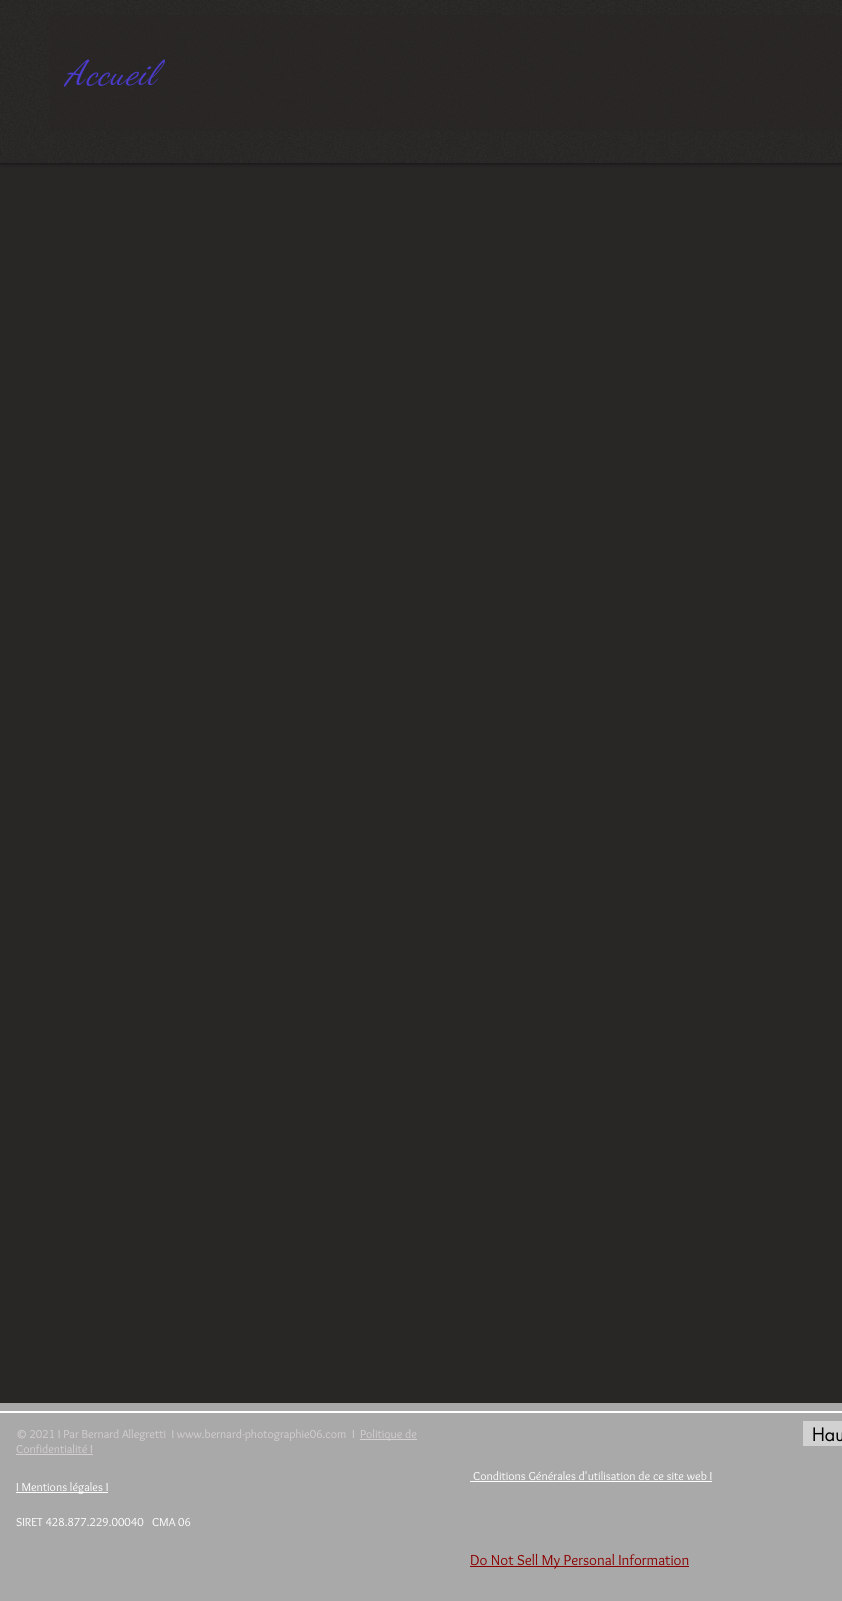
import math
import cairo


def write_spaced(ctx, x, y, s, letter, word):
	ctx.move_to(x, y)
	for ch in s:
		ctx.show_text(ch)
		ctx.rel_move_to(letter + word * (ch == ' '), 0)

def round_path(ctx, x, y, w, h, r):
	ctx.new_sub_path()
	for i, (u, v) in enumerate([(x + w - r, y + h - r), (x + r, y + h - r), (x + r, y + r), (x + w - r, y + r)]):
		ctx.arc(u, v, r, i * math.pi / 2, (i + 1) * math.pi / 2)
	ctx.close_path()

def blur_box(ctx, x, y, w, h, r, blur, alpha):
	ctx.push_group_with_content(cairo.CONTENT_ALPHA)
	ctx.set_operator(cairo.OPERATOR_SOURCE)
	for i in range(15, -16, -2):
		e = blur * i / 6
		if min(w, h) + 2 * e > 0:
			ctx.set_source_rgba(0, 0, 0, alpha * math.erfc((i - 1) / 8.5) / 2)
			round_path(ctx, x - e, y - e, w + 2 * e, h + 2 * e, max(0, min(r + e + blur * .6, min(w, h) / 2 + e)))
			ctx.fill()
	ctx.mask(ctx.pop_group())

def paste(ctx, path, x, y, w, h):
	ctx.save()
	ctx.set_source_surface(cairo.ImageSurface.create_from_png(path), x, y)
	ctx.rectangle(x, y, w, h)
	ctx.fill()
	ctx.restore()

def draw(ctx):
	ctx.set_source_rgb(0.161, 0.149, 0.149)
	ctx.paint()
	ctx.set_source_rgb(0, 0, 0)
	blur_box(ctx, 0, 0, 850, 163, 0, 2.5, 0.7)
	ctx.set_source_rgb(0.161, 0.149, 0.149)
	ctx.rectangle(0, 0, 842, 163)
	ctx.fill()
	paste(ctx, 'media/1.png', 0, 0, 842, 163)
	ctx.set_source_rgba(0.161, 0.149, 0.149, 0.57)
	ctx.rectangle(49, 15, 793, 116)
	ctx.fill()
	ctx.select_font_face('Dancing Script', cairo.FONT_SLANT_ITALIC)
	ctx.set_font_size(34)
	ctx.set_source_rgb(0.294, 0.235, 0.804)
	write_spaced(ctx, 65, 84, 'Accueil', 1, 0)
	ctx.set_source_rgb(0.663, 0.663, 0.663)
	ctx.rectangle(0, 1403, 842, 198)
	ctx.fill()
	ctx.set_source_rgb(1, 1, 1)
	ctx.rectangle(0, 1411, 842, 2)
	ctx.fill()
	ctx.select_font_face('Overlock')
	ctx.set_font_size(12)
	ctx.set_source_rgb(0.831, 0.816, 0.816)
	ctx.move_to(16, 1438)
	ctx.show_text('© 2021 I Par Bernard Allegretti  I www.bernard-photographie06.com')
	ctx.move_to(352, 1438)
	ctx.show_text('I')
	ctx.rectangle(360, 1439, 57, 1)
	ctx.fill()
	ctx.move_to(360, 1438)
	ctx.show_text('Politique de')
	ctx.move_to(16, 1453)
	ctx.show_text('Confidentialité I')
	ctx.rectangle(16, 1454, 77, 1)
	ctx.fill()
	ctx.set_source_rgb(1, 1, 1)
	ctx.rectangle(16, 1492, 92, 1)
	ctx.fill()
	for x, y, s in [
		(16, 1491, 'I Mentions légales I'),
		(16, 1526, 'SIRET 428.877.229.00040   CMA 06'),
		(473, 1480, 'Conditions Générales d\'utilisation de ce site web I'),
	]:
		ctx.move_to(x, y)
		ctx.show_text(s)
	ctx.rectangle(470, 1481, 242, 1)
	ctx.fill()
	ctx.set_source_rgb(0.82, 0.82, 0.82)
	ctx.rectangle(803, 1421, 39, 25)
	ctx.fill()
	ctx.select_font_face('futura')
	ctx.set_font_size(18)
	ctx.set_source_rgb(0, 0, 0)
	ctx.move_to(812, 1441)
	ctx.show_text('Hau')
	ctx.set_source_rgb(0.545, 0, 0)
	ctx.rectangle(470, 1566, 219, 1)
	ctx.fill()
	ctx.select_font_face('Overlock')
	ctx.set_font_size(15)
	ctx.move_to(470, 1565)
	ctx.show_text('Do Not Sell My Personal Information')


surface = cairo.ImageSurface(cairo.FORMAT_RGB24, 842, 1601)
ctx = cairo.Context(surface)
options = cairo.FontOptions()
options.set_hint_metrics(cairo.HINT_METRICS_OFF)
options.set_hint_style(cairo.HINT_STYLE_NONE)
ctx.set_font_options(options)
ctx.set_miter_limit(4)
draw(ctx)
surface.write_to_png('image.png')
